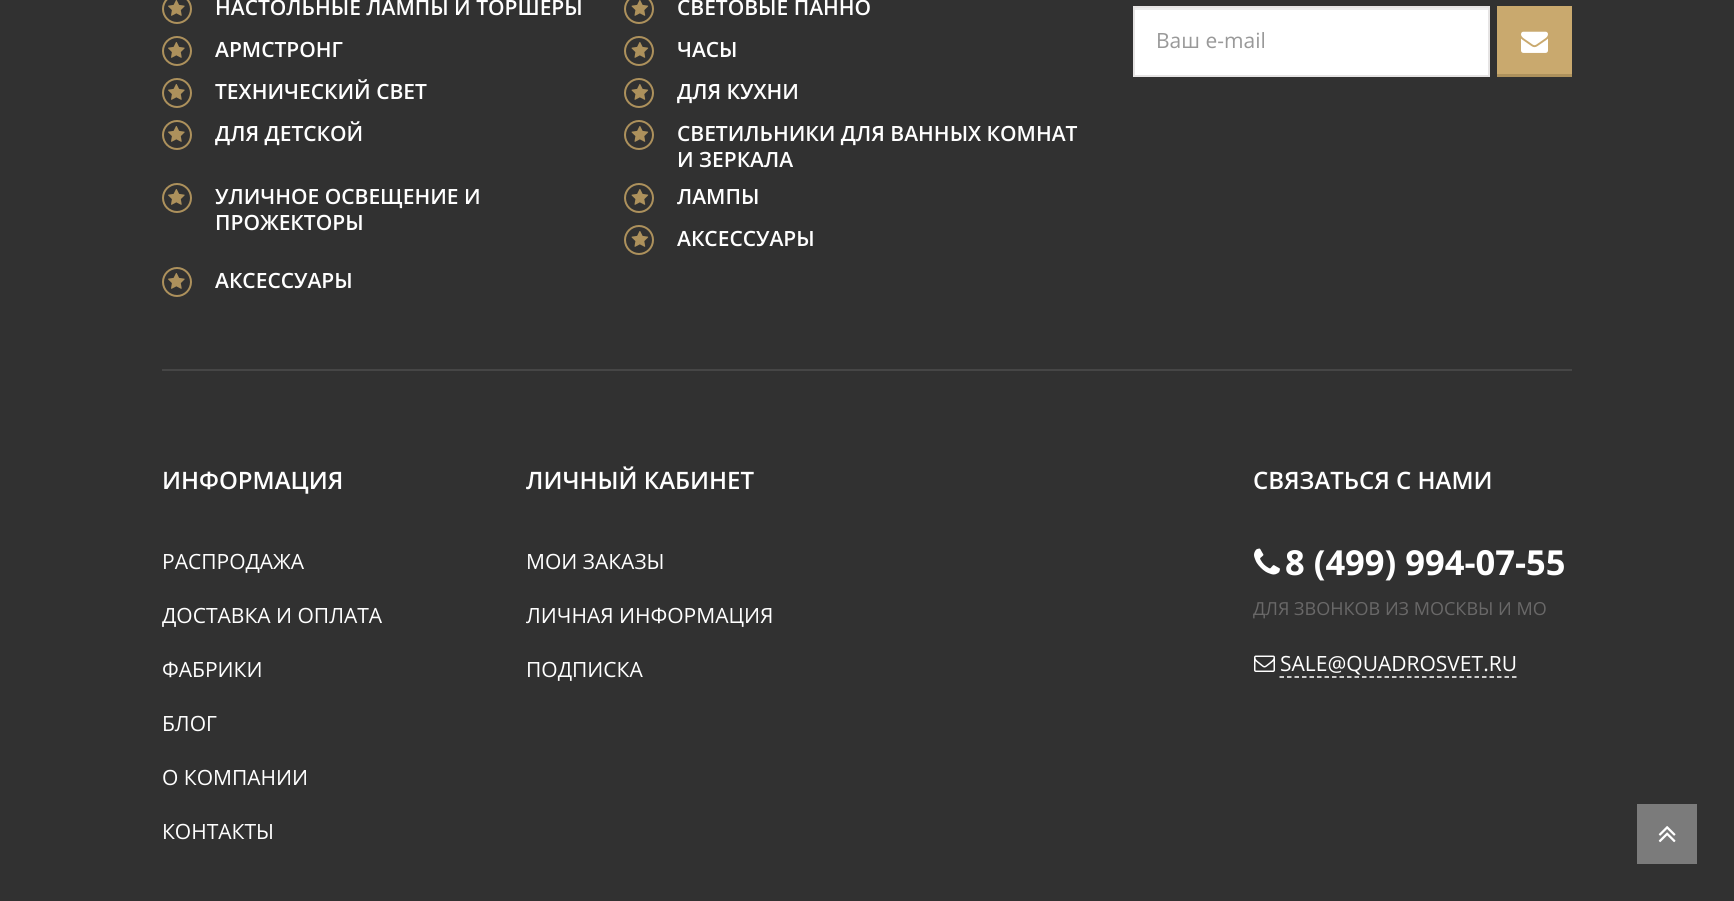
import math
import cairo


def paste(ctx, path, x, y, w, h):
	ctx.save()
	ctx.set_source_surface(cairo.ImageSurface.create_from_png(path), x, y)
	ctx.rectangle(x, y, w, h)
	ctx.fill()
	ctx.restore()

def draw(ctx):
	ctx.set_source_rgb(0.192, 0.192, 0.192)
	ctx.paint()
	ctx.arc(177, 9, 14, 0, 2 * math.pi)
	ctx.set_source_rgb(0.678, 0.569, 0.361)
	ctx.stroke()
	paste(ctx, 'media/1.png', 168, 0, 17, 16)
	ctx.select_font_face('Open Sans SemiBold')
	ctx.set_font_size(21)
	ctx.set_source_rgb(1, 1, 1)
	ctx.move_to(215, 15)
	ctx.show_text('НАСТОЛЬНЫЕ ЛАМПЫ И ТОРШЕРЫ')
	ctx.new_path()
	ctx.arc(639, 9, 14, 0, 2 * math.pi)
	ctx.set_source_rgb(0.678, 0.569, 0.361)
	ctx.stroke()
	paste(ctx, 'media/2.png', 631, 0, 18, 16)
	ctx.set_source_rgb(1, 1, 1)
	ctx.move_to(677, 15)
	ctx.show_text('СВЕТОВЫЕ ПАННО')
	ctx.new_path()
	ctx.arc(177, 51, 14, 0, 2 * math.pi)
	ctx.set_source_rgb(0.678, 0.569, 0.361)
	ctx.stroke()
	paste(ctx, 'media/1.png', 168, 42, 17, 16)
	ctx.set_source_rgb(1, 1, 1)
	ctx.move_to(215, 57)
	ctx.show_text('АРМСТРОНГ')
	ctx.new_path()
	ctx.arc(639, 51, 14, 0, 2 * math.pi)
	ctx.set_source_rgb(0.678, 0.569, 0.361)
	ctx.stroke()
	paste(ctx, 'media/2.png', 631, 42, 18, 16)
	ctx.set_source_rgb(1, 1, 1)
	ctx.move_to(677, 57)
	ctx.show_text('ЧАСЫ')
	ctx.new_path()
	ctx.arc(177, 93, 14, 0, 2 * math.pi)
	ctx.set_source_rgb(0.678, 0.569, 0.361)
	ctx.stroke()
	paste(ctx, 'media/1.png', 168, 84, 17, 16)
	ctx.set_source_rgb(1, 1, 1)
	ctx.move_to(215, 99)
	ctx.show_text('ТЕХНИЧЕСКИЙ СВЕТ')
	ctx.new_path()
	ctx.arc(639, 93, 14, 0, 2 * math.pi)
	ctx.set_source_rgb(0.678, 0.569, 0.361)
	ctx.stroke()
	paste(ctx, 'media/2.png', 631, 84, 18, 16)
	ctx.set_source_rgb(1, 1, 1)
	ctx.move_to(677, 99)
	ctx.show_text('ДЛЯ КУХНИ')
	ctx.new_path()
	ctx.arc(177, 135, 14, 0, 2 * math.pi)
	ctx.set_source_rgb(0.678, 0.569, 0.361)
	ctx.stroke()
	paste(ctx, 'media/1.png', 168, 126, 17, 16)
	ctx.set_source_rgb(1, 1, 1)
	ctx.move_to(215, 141)
	ctx.show_text('ДЛЯ ДЕТСКОЙ')
	ctx.new_path()
	ctx.arc(639, 135, 14, 0, 2 * math.pi)
	ctx.set_source_rgb(0.678, 0.569, 0.361)
	ctx.stroke()
	paste(ctx, 'media/2.png', 631, 126, 18, 16)
	ctx.set_source_rgb(1, 1, 1)
	ctx.move_to(677, 141)
	ctx.show_text('СВЕТИЛЬНИКИ ДЛЯ ВАННЫХ КОМНАТ')
	ctx.move_to(677, 167)
	ctx.show_text('И ЗЕРКАЛА')
	ctx.new_path()
	ctx.arc(177, 198, 14, 0, 2 * math.pi)
	ctx.set_source_rgb(0.678, 0.569, 0.361)
	ctx.stroke()
	paste(ctx, 'media/1.png', 168, 189, 17, 16)
	ctx.set_source_rgb(1, 1, 1)
	ctx.move_to(215, 204)
	ctx.show_text('УЛИЧНОЕ ОСВЕЩЕНИЕ И')
	ctx.move_to(215, 230)
	ctx.show_text('ПРОЖЕКТОРЫ')
	ctx.new_path()
	ctx.arc(639, 198, 14, 0, 2 * math.pi)
	ctx.set_source_rgb(0.678, 0.569, 0.361)
	ctx.stroke()
	paste(ctx, 'media/2.png', 631, 189, 18, 16)
	ctx.set_source_rgb(1, 1, 1)
	ctx.move_to(677, 204)
	ctx.show_text('ЛАМПЫ')
	ctx.new_path()
	ctx.arc(639, 240, 14, 0, 2 * math.pi)
	ctx.set_source_rgb(0.678, 0.569, 0.361)
	ctx.stroke()
	paste(ctx, 'media/2.png', 631, 231, 18, 16)
	ctx.set_source_rgb(1, 1, 1)
	ctx.move_to(677, 246)
	ctx.show_text('АКСЕССУАРЫ')
	ctx.new_path()
	ctx.arc(177, 282, 14, 0, 2 * math.pi)
	ctx.set_source_rgb(0.678, 0.569, 0.361)
	ctx.stroke()
	paste(ctx, 'media/1.png', 168, 273, 17, 16)
	ctx.set_source_rgb(1, 1, 1)
	ctx.move_to(215, 288)
	ctx.show_text('АКСЕССУАРЫ')
	ctx.rectangle(1135, 10, 353, 65)
	ctx.fill()
	ctx.set_source_rgb(0.925, 0.925, 0.925)
	ctx.rectangle(1134, 8, 354, 2)
	ctx.fill()
	ctx.rectangle(1134, 7, 355, 69)
	ctx.set_source_rgb(0.902, 0.894, 0.894)
	ctx.stroke()
	ctx.select_font_face('Open Sans')
	ctx.set_source_rgb(0.6, 0.6, 0.6)
	ctx.move_to(1156, 48)
	ctx.show_text('Ваш e-mail')
	ctx.set_source_rgb(0.788, 0.663, 0.431)
	ctx.rectangle(1497, 6, 75, 68)
	ctx.fill()
	ctx.set_source_rgb(0.678, 0.569, 0.361)
	ctx.rectangle(1497, 74, 75, 3)
	ctx.fill()
	paste(ctx, 'media/3.png', 1521, 31, 27, 22)
	ctx.set_source_rgb(0.275, 0.275, 0.275)
	ctx.rectangle(162, 369, 1410, 2)
	ctx.fill()
	ctx.select_font_face('Open Sans SemiBold')
	ctx.set_font_size(24)
	ctx.set_source_rgb(1, 1, 1)
	ctx.move_to(162, 489)
	ctx.show_text('ИНФОРМАЦИЯ')
	ctx.select_font_face('Open Sans')
	ctx.set_font_size(21)
	for x, y, s in [
		(162, 569, 'РАСПРОДАЖА'),
		(162, 623, 'ДОСТАВКА И ОПЛАТА'),
		(162, 677, 'ФАБРИКИ'),
		(162, 731, 'БЛОГ'),
		(162, 785, 'О КОМПАНИИ'),
		(162, 839, 'КОНТАКТЫ'),
	]:
		ctx.move_to(x, y)
		ctx.show_text(s)
	ctx.select_font_face('Open Sans SemiBold')
	ctx.set_font_size(24)
	ctx.move_to(526, 489)
	ctx.show_text('ЛИЧНЫЙ КАБИНЕТ')
	ctx.select_font_face('Open Sans')
	ctx.set_font_size(21)
	for x, y, s in [
		(526, 569, 'МОИ ЗАКАЗЫ'),
		(526, 623, 'ЛИЧНАЯ ИНФОРМАЦИЯ'),
		(526, 677, 'ПОДПИСКА'),
	]:
		ctx.move_to(x, y)
		ctx.show_text(s)
	ctx.select_font_face('Open Sans SemiBold')
	ctx.set_font_size(24)
	ctx.move_to(1253, 489)
	ctx.show_text('СВЯЗАТЬСЯ С НАМИ')
	paste(ctx, 'media/4.png', 1254, 548, 26, 27)
	ctx.select_font_face('Open Sans', cairo.FONT_SLANT_NORMAL, cairo.FONT_WEIGHT_BOLD)
	ctx.set_font_size(34.5)
	ctx.move_to(1285, 575)
	ctx.show_text('8 (499) 994-07-55')
	ctx.select_font_face('Open Sans')
	ctx.set_font_size(18)
	ctx.set_source_rgb(0.412, 0.408, 0.408)
	ctx.move_to(1253, 615)
	ctx.show_text('ДЛЯ ЗВОНКОВ ИЗ МОСКВЫ И МО')
	paste(ctx, 'media/5.png', 1254, 655, 21, 17)
	ctx.set_font_size(21)
	ctx.set_source_rgb(1, 1, 1)
	ctx.move_to(1280, 671)
	ctx.show_text('SALE@QUADROSVET.RU')
	ctx.new_path()
	ctx.move_to(1279.5, 677)
	ctx.line_to(1516.5, 677)
	ctx.set_line_width(1.5)
	ctx.set_dash([4.5, 3])
	ctx.stroke()
	ctx.set_source_rgb(0.482, 0.482, 0.482)
	ctx.rectangle(1637, 804, 60, 60)
	ctx.fill()
	paste(ctx, 'media/6.png', 1658, 826, 18, 17)


surface = cairo.ImageSurface(cairo.FORMAT_RGB24, 1734, 901)
ctx = cairo.Context(surface)
options = cairo.FontOptions()
options.set_hint_metrics(cairo.HINT_METRICS_OFF)
options.set_hint_style(cairo.HINT_STYLE_NONE)
ctx.set_font_options(options)
ctx.set_miter_limit(4)
draw(ctx)
surface.write_to_png('image.png')
